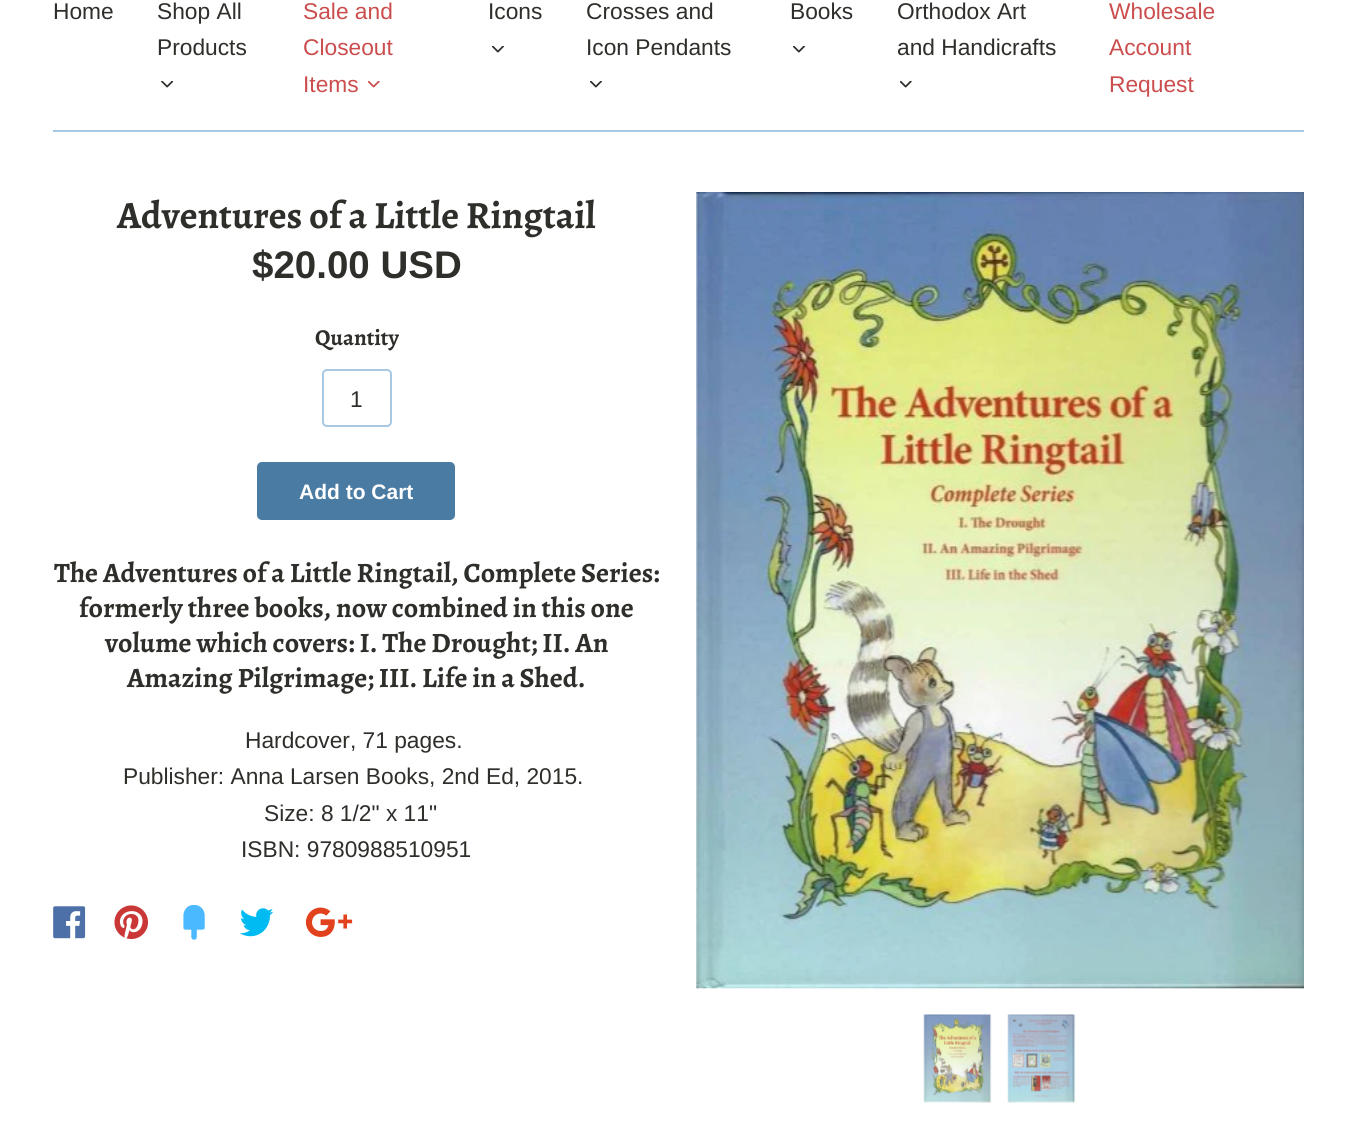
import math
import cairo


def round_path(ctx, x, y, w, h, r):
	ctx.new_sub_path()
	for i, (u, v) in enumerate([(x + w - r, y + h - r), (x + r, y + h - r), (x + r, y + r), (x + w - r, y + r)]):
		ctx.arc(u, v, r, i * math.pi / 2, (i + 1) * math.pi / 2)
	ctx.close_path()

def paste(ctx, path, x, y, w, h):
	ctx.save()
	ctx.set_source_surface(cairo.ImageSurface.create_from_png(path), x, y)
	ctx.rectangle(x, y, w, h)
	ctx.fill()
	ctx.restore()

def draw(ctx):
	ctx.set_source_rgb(1, 1, 1)
	ctx.paint()
	ctx.select_font_face('Liberation Sans')
	ctx.set_font_size(22.75)
	ctx.set_source_rgb(0.18, 0.184, 0.165)
	for x, y, s in [
		(53, 19, 'Home'),
		(157, 19, 'Shop All'),
		(157, 55, 'Products'),
	]:
		ctx.move_to(x, y)
		ctx.show_text(s)
	paste(ctx, 'media/1.png', 161, 81, 12, 7)
	ctx.set_source_rgb(0.796, 0.302, 0.302)
	for x, y, s in [
		(303, 19, 'Sale and'),
		(303, 55, 'Closeout'),
		(303, 92, 'Items'),
	]:
		ctx.move_to(x, y)
		ctx.show_text(s)
	paste(ctx, 'media/2.png', 368, 81, 12, 7)
	ctx.set_source_rgb(0.18, 0.184, 0.165)
	ctx.move_to(488, 19)
	ctx.show_text('Icons')
	paste(ctx, 'media/3.png', 492, 46, 12, 7)
	ctx.move_to(586, 19)
	ctx.show_text('Crosses and')
	ctx.move_to(586, 55)
	ctx.show_text('Icon Pendants')
	paste(ctx, 'media/3.png', 590, 81, 12, 7)
	ctx.move_to(790, 19)
	ctx.show_text('Books')
	paste(ctx, 'media/3.png', 793, 46, 12, 7)
	ctx.move_to(897, 19)
	ctx.show_text('Orthodox Art')
	ctx.move_to(897, 55)
	ctx.show_text('and Handicrafts')
	paste(ctx, 'media/4.png', 900, 81, 12, 7)
	ctx.set_source_rgb(0.796, 0.302, 0.302)
	for x, y, s in [
		(1109, 19, 'Wholesale'),
		(1109, 55, 'Account'),
		(1109, 92, 'Request'),
	]:
		ctx.move_to(x, y)
		ctx.show_text(s)
	ctx.set_source_rgb(0.663, 0.784, 0.882)
	ctx.rectangle(53, 130, 1251, 2)
	ctx.fill()
	ctx.select_font_face('Alegreya', cairo.FONT_SLANT_NORMAL, cairo.FONT_WEIGHT_BOLD)
	ctx.set_font_size(38.5)
	ctx.set_source_rgb(0.18, 0.184, 0.165)
	ctx.move_to(117, 228)
	ctx.show_text('Adventures of a Little Ringtail')
	ctx.select_font_face('Liberation Sans', cairo.FONT_SLANT_NORMAL, cairo.FONT_WEIGHT_BOLD)
	ctx.move_to(252, 278)
	ctx.show_text('$20.00 USD')
	ctx.select_font_face('Alegreya', cairo.FONT_SLANT_NORMAL, cairo.FONT_WEIGHT_BOLD)
	ctx.set_font_size(22.75)
	ctx.move_to(315, 345)
	ctx.show_text('Quantity')
	round_path(ctx, 323, 370, 68, 56, 4)
	ctx.set_source_rgb(0.663, 0.784, 0.882)
	ctx.stroke()
	ctx.select_font_face('Liberation Sans')
	ctx.set_source_rgb(0.18, 0.184, 0.165)
	ctx.move_to(350, 407)
	ctx.show_text('1')
	ctx.set_source_rgb(0.29, 0.482, 0.635)
	round_path(ctx, 257, 462, 198, 58, 5)
	ctx.fill()
	ctx.select_font_face('Liberation Sans', cairo.FONT_SLANT_NORMAL, cairo.FONT_WEIGHT_BOLD)
	ctx.set_font_size(21)
	ctx.set_source_rgb(1, 1, 1)
	ctx.move_to(299, 499)
	ctx.show_text('Add to Cart')
	ctx.select_font_face('Alegreya', cairo.FONT_SLANT_NORMAL, cairo.FONT_WEIGHT_BOLD)
	ctx.set_font_size(28)
	ctx.set_source_rgb(0.18, 0.184, 0.165)
	for x, y, s in [
		(54, 582, 'The Adventures of a Little Ringtail, Complete Series:'),
		(79, 617, 'formerly three books, now combined in this one'),
		(105, 652, 'volume which covers: I. The Drought; II. An'),
		(127, 687, 'Amazing Pilgrimage; III. Life in a Shed.'),
	]:
		ctx.move_to(x, y)
		ctx.show_text(s)
	ctx.select_font_face('Liberation Sans')
	ctx.set_font_size(22.75)
	for x, y, s in [
		(245, 748, 'Hardcover, 71 pages.'),
		(123, 784, 'Publisher: Anna Larsen Books, 2nd Ed, 2015.'),
		(264, 821, 'Size: 8 1/2" x 11"'),
		(241, 857, 'ISBN: 9780988510951'),
	]:
		ctx.move_to(x, y)
		ctx.show_text(s)
	paste(ctx, 'media/5.png', 53, 906, 33, 33)
	paste(ctx, 'media/6.png', 114, 905, 35, 35)
	paste(ctx, 'media/7.png', 183, 905, 22, 35)
	paste(ctx, 'media/8.png', 240, 908, 34, 29)
	paste(ctx, 'media/9.png', 305, 907, 48, 30)
	paste(ctx, 'media/10.png', 696, 192, 608, 797)
	paste(ctx, 'media/11.png', 923, 1014, 69, 89)
	paste(ctx, 'media/12.png', 1007, 1014, 69, 89)


surface = cairo.ImageSurface(cairo.FORMAT_RGB24, 1355, 1128)
ctx = cairo.Context(surface)
options = cairo.FontOptions()
options.set_hint_metrics(cairo.HINT_METRICS_OFF)
options.set_hint_style(cairo.HINT_STYLE_NONE)
ctx.set_font_options(options)
ctx.set_miter_limit(4)
draw(ctx)
surface.write_to_png('image.png')
